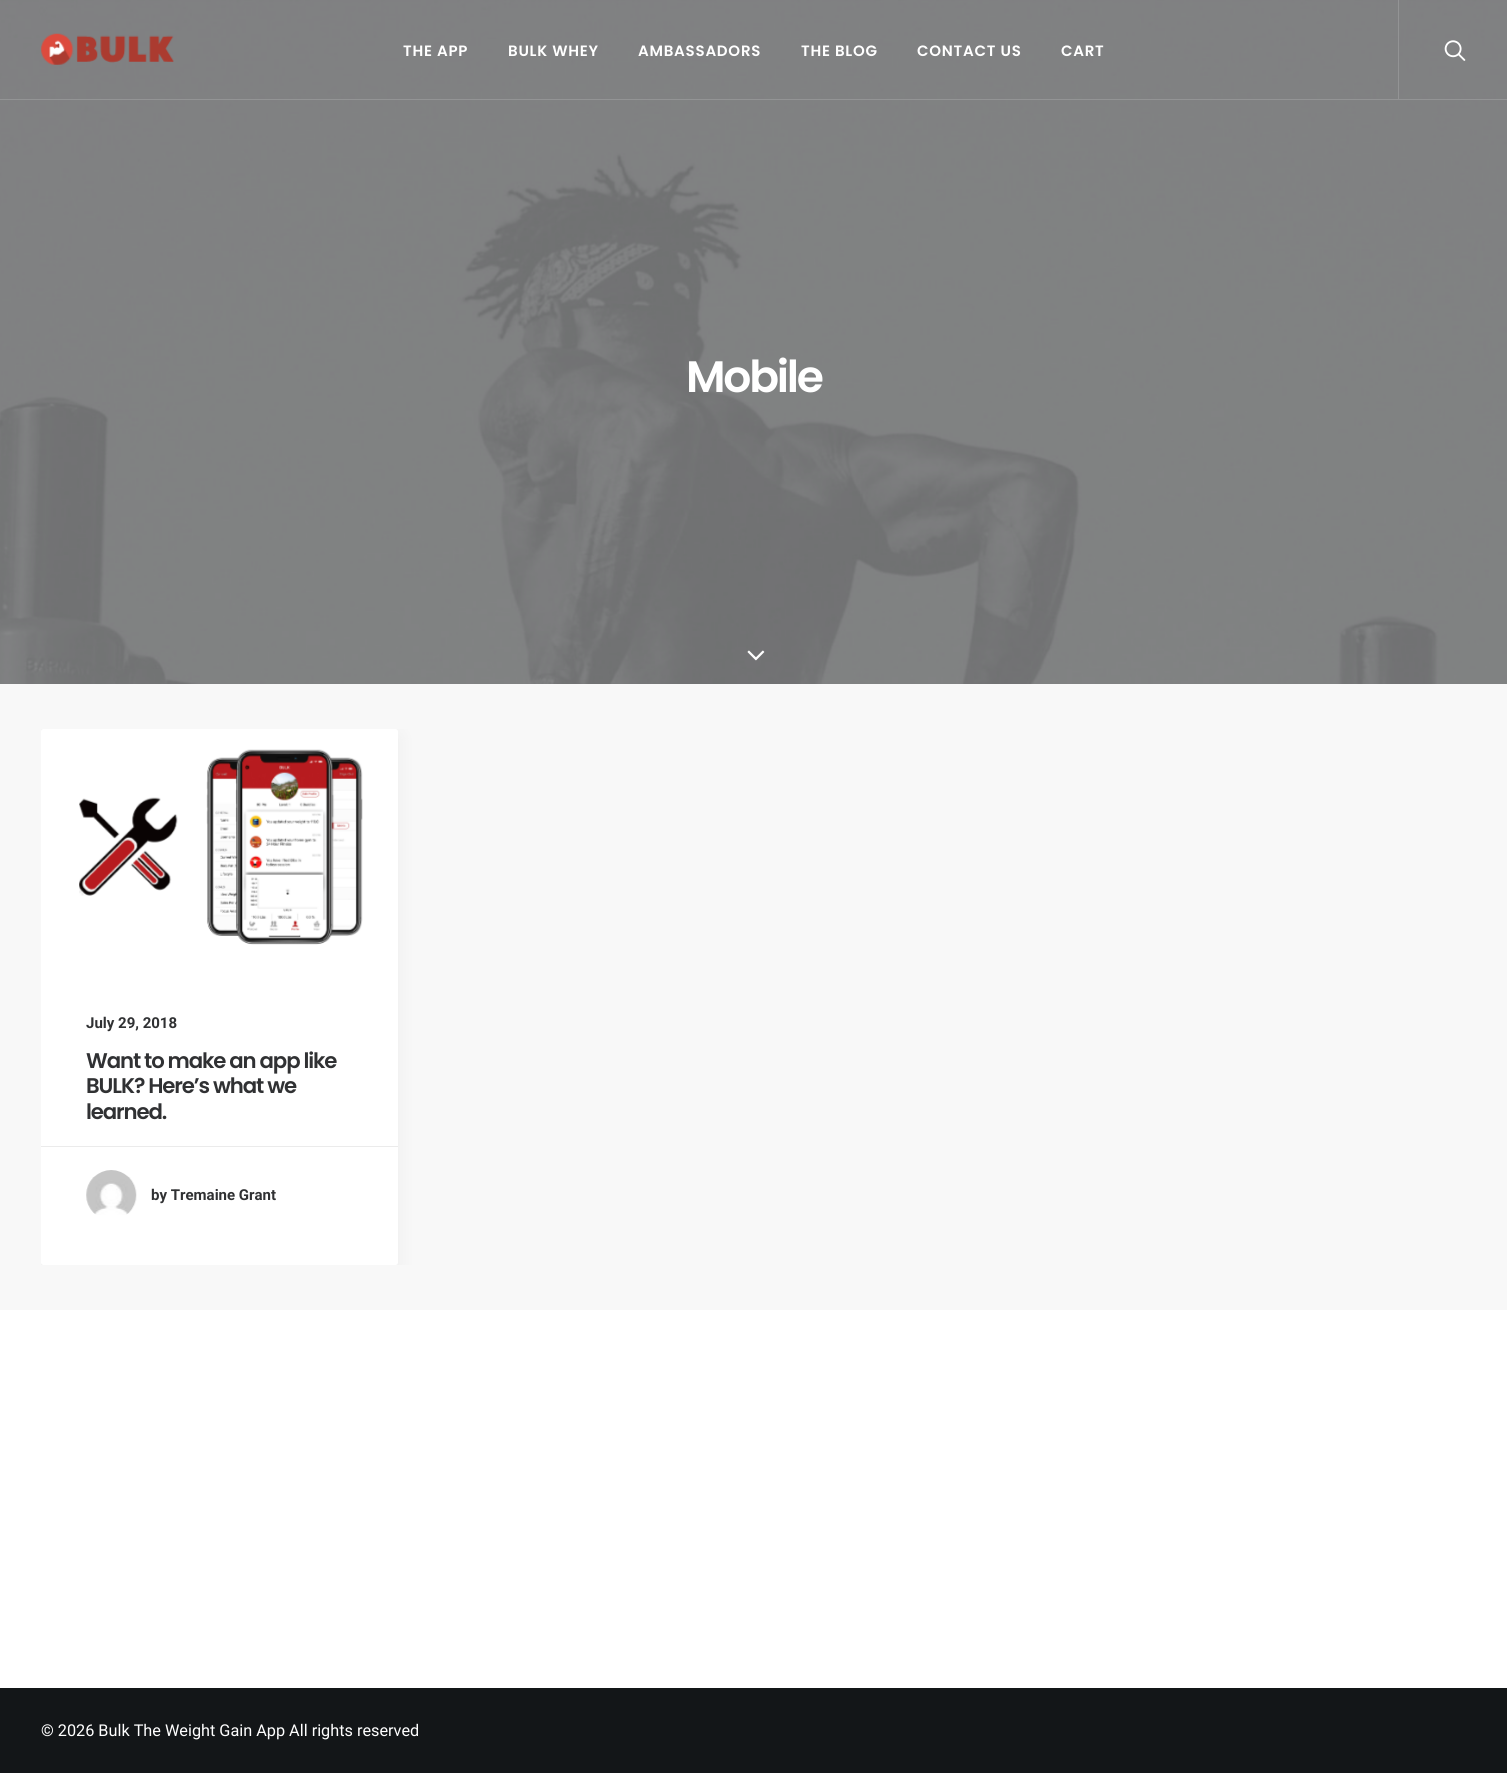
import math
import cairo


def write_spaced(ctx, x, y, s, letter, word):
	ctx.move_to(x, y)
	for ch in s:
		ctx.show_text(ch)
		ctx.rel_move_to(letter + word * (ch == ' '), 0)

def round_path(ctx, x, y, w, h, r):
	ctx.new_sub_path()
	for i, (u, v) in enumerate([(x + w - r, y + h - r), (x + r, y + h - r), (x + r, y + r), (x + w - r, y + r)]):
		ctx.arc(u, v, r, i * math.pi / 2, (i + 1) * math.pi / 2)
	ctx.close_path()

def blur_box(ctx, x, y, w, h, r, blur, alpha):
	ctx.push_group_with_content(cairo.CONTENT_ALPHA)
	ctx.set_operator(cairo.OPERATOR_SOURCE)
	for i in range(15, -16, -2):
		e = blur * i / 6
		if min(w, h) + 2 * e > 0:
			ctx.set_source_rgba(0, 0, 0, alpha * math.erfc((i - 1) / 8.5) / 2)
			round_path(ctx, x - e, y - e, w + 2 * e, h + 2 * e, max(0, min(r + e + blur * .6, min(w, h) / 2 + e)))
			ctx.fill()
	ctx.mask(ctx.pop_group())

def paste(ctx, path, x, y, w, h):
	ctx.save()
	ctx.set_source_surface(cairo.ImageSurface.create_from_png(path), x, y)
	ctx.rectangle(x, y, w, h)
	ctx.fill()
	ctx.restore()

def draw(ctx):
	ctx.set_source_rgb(0.078, 0.086, 0.094)
	ctx.paint()
	paste(ctx, 'media/3.png', 0, 0, 1507, 684)
	ctx.set_source_rgb(0.576, 0.58, 0.584)
	ctx.rectangle(0, 99, 1507, 1)
	ctx.fill()
	paste(ctx, 'media/1.png', 41, 33, 133, 32)
	ctx.select_font_face('Poppins SemiBold')
	ctx.set_font_size(15)
	ctx.set_source_rgb(1, 1, 1)
	for x, y, s in [
		(403, 56, 'THE APP'),
		(508, 56, 'BULK WHEY'),
		(638, 56, 'AMBASSADORS'),
		(801, 56, 'THE BLOG'),
		(917, 56, 'CONTACT US'),
		(1061, 56, 'CART'),
	]:
		write_spaced(ctx, x, y, s, 0.75, 0)
	ctx.set_source_rgb(0.576, 0.58, 0.584)
	ctx.rectangle(1398, 0, 1, 99)
	ctx.fill()
	paste(ctx, 'media/2.png', 1444, 40, 22, 21)
	ctx.set_font_size(44)
	ctx.set_source_rgb(1, 1, 1)
	write_spaced(ctx, 686, 392, 'Mobile', -2.25, 0)
	paste(ctx, 'media/4.png', 747, 650, 18, 11)
	ctx.rectangle(0, 1310, 1507, 378)
	ctx.fill()
	ctx.set_source_rgb(0.969, 0.969, 0.969)
	ctx.rectangle(0, 684, 1507, 626)
	ctx.fill()
	ctx.save()
	ctx.rectangle(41, 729, 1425, 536)
	ctx.clip()
	ctx.set_source_rgb(0, 0, 0)
	blur_box(ctx, 41, 735, 357, 536, 2.5, 9.5, 0.05)
	ctx.restore()
	ctx.set_source_rgb(1, 1, 1)
	round_path(ctx, 41, 729, 357, 536, 2.5)
	ctx.fill()
	paste(ctx, 'media/5.png', 79, 749, 284, 196)
	ctx.select_font_face('Roboto', cairo.FONT_SLANT_NORMAL, cairo.FONT_WEIGHT_BOLD)
	ctx.set_font_size(15)
	ctx.set_source_rgb(0.188, 0.192, 0.2)
	ctx.move_to(86, 1028)
	ctx.show_text('July 29, 2018')
	ctx.select_font_face('Poppins SemiBold')
	ctx.set_font_size(21.25)
	for x, y, s in [
		(86, 1068, 'Want to make an app like'),
		(86, 1093, 'BULK? Here’s what we'),
		(86, 1119, 'learned.'),
	]:
		write_spaced(ctx, x, y, s, -1.1, 0)
	ctx.set_source_rgb(0.918, 0.918, 0.918)
	ctx.rectangle(41, 1146, 357, 1)
	ctx.fill()
	paste(ctx, 'media/6.png', 86, 1170, 51, 45)
	ctx.select_font_face('Roboto', cairo.FONT_SLANT_NORMAL, cairo.FONT_WEIGHT_BOLD)
	ctx.set_font_size(15)
	ctx.set_source_rgb(0.188, 0.192, 0.2)
	ctx.move_to(151, 1200)
	ctx.show_text('by Tremaine Grant')
	ctx.select_font_face('Roboto')
	ctx.set_font_size(16.25)
	ctx.set_source_rgb(1, 1, 1)
	ctx.move_to(41, 1736)
	ctx.show_text('© 2026 Bulk The Weight Gain App All rights reserved')


surface = cairo.ImageSurface(cairo.FORMAT_RGB24, 1507, 1773)
ctx = cairo.Context(surface)
options = cairo.FontOptions()
options.set_hint_metrics(cairo.HINT_METRICS_OFF)
options.set_hint_style(cairo.HINT_STYLE_NONE)
ctx.set_font_options(options)
ctx.set_miter_limit(4)
draw(ctx)
surface.write_to_png('image.png')
